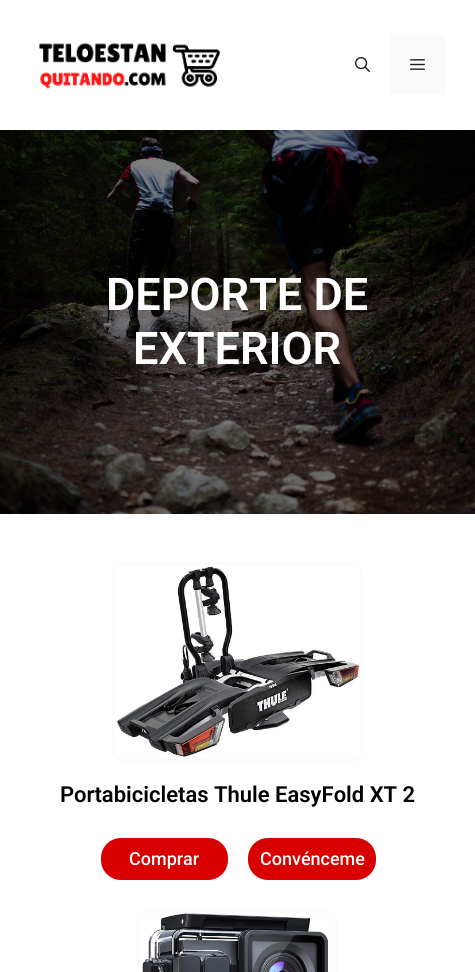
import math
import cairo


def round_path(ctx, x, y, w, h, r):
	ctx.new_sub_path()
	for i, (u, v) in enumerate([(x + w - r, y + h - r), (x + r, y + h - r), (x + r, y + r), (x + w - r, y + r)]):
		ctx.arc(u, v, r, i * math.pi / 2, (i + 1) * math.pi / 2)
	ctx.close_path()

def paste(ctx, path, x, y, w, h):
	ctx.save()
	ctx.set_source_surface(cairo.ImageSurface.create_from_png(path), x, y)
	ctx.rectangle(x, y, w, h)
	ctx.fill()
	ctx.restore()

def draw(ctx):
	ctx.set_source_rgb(1, 1, 1)
	ctx.paint()
	paste(ctx, 'media/1.png', 38, 43, 183, 46)
	paste(ctx, 'media/2.png', 355, 57, 15, 15)
	ctx.set_source_rgb(0.98, 0.98, 0.98)
	ctx.rectangle(390, 35, 55, 60)
	ctx.fill()
	paste(ctx, 'media/3.png', 410, 59, 15, 11)
	paste(ctx, 'media/4.png', 0, 130, 475, 384)
	ctx.select_font_face('Roboto SemiBold')
	ctx.set_font_size(45)
	ctx.set_source_rgb(1, 1, 1)
	ctx.move_to(106, 310)
	ctx.show_text('DEPORTE DE')
	ctx.move_to(133, 364)
	ctx.show_text('EXTERIOR')
	round_path(ctx, 113.5, 563.5, 248, 197, 10.5)
	ctx.set_source_rgb(0.988, 0.988, 0.988)
	ctx.set_line_width(3)
	ctx.stroke()
	paste(ctx, 'media/5.png', 116, 566, 244, 192)
	ctx.set_font_size(22)
	ctx.set_source_rgb(0, 0, 0)
	ctx.move_to(60, 802)
	ctx.show_text('Portabicicletas Thule EasyFold XT 2')
	ctx.set_source_rgb(0.847, 0, 0)
	round_path(ctx, 101, 838, 127, 42, 20)
	ctx.fill()
	ctx.select_font_face('Roboto Medium')
	ctx.set_font_size(18)
	ctx.set_source_rgb(1, 1, 1)
	ctx.move_to(129, 865)
	ctx.show_text('Comprar')
	ctx.set_source_rgb(0.847, 0, 0)
	round_path(ctx, 248, 838, 128, 42, 20)
	ctx.fill()
	ctx.set_source_rgb(1, 1, 1)
	ctx.move_to(260, 865)
	ctx.show_text('Convénceme')
	round_path(ctx, 138.5, 911.5, 198, 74, 10.5)
	ctx.set_source_rgb(0.988, 0.988, 0.988)
	ctx.stroke()
	paste(ctx, 'media/6.png', 142, 913, 186, 59)


surface = cairo.ImageSurface(cairo.FORMAT_RGB24, 475, 972)
ctx = cairo.Context(surface)
options = cairo.FontOptions()
options.set_hint_metrics(cairo.HINT_METRICS_OFF)
options.set_hint_style(cairo.HINT_STYLE_NONE)
ctx.set_font_options(options)
ctx.set_miter_limit(4)
draw(ctx)
surface.write_to_png('image.png')
